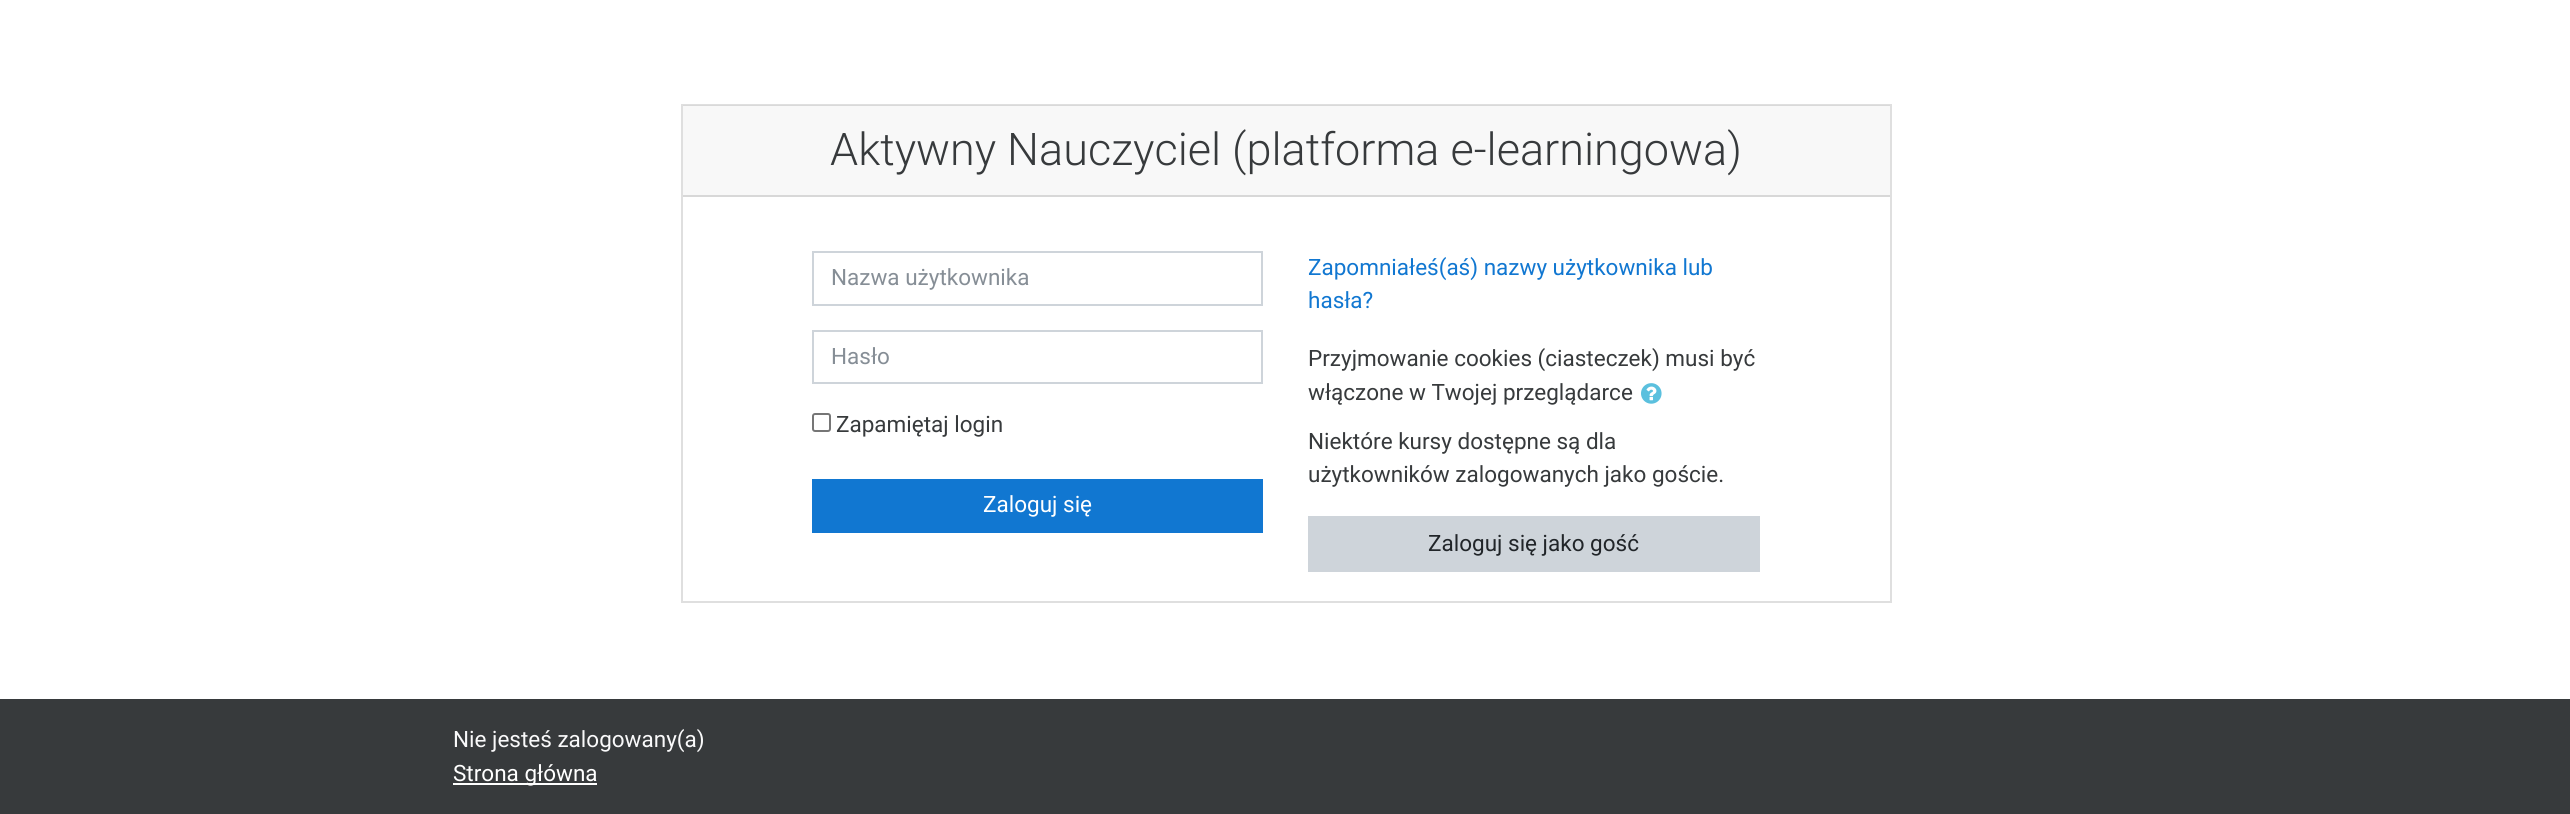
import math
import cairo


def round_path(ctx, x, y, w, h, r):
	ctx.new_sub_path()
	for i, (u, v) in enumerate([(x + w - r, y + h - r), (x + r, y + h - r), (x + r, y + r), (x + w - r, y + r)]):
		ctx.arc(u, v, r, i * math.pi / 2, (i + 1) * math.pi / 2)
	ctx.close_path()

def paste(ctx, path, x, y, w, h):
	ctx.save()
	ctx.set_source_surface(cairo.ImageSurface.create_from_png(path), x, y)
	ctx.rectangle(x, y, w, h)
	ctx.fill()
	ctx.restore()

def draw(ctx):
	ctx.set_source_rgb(1, 1, 1)
	ctx.paint()
	ctx.rectangle(682, 105, 1209, 497)
	ctx.set_source_rgb(0.875, 0.875, 0.875)
	ctx.stroke()
	ctx.set_source_rgba(0, 0, 0, 0.03)
	ctx.rectangle(683, 105, 1207, 90)
	ctx.fill()
	ctx.set_source_rgb(0.847, 0.847, 0.847)
	ctx.rectangle(683, 195, 1207, 2)
	ctx.fill()
	ctx.select_font_face('Roboto Light')
	ctx.set_font_size(45)
	ctx.set_source_rgb(0.216, 0.227, 0.235)
	ctx.move_to(830, 165)
	ctx.show_text('Aktywny Nauczyciel (platforma e-learningowa)')
	ctx.rectangle(813, 252, 449, 53)
	ctx.set_source_rgb(0.808, 0.831, 0.855)
	ctx.stroke()
	ctx.select_font_face('Roboto')
	ctx.set_font_size(22.5)
	ctx.set_source_rgb(0.525, 0.557, 0.588)
	ctx.move_to(831, 285)
	ctx.show_text('Nazwa użytkownika')
	ctx.rectangle(813, 331, 449, 52)
	ctx.set_source_rgb(0.808, 0.831, 0.855)
	ctx.stroke()
	ctx.set_source_rgb(0.525, 0.557, 0.588)
	ctx.move_to(831, 364)
	ctx.show_text('Hasło')
	round_path(ctx, 813, 414, 17, 17, 2)
	ctx.set_source_rgb(0.463, 0.463, 0.463)
	ctx.stroke()
	ctx.set_source_rgb(0.216, 0.227, 0.235)
	ctx.move_to(836, 432)
	ctx.show_text('Zapamiętaj login')
	ctx.set_source_rgb(0.067, 0.467, 0.82)
	ctx.rectangle(812, 479, 451, 54)
	ctx.fill()
	ctx.set_source_rgb(1, 1, 1)
	ctx.move_to(983, 512)
	ctx.show_text('Zaloguj się')
	ctx.set_source_rgb(0.067, 0.467, 0.82)
	ctx.move_to(1308, 275)
	ctx.show_text('Zapomniałeś(aś) nazwy użytkownika lub')
	ctx.move_to(1308, 308)
	ctx.show_text('hasła?')
	ctx.set_source_rgb(0.216, 0.227, 0.235)
	ctx.move_to(1308, 366)
	ctx.show_text('Przyjmowanie cookies (ciasteczek) musi być')
	ctx.move_to(1308, 400)
	ctx.show_text('włączone w Twojej przeglądarce')
	paste(ctx, 'media/1.png', 1641, 383, 21, 21)
	ctx.move_to(1308, 449)
	ctx.show_text('Niektóre kursy dostępne są dla')
	ctx.move_to(1308, 482)
	ctx.show_text('użytkowników zalogowanych jako goście.')
	ctx.set_source_rgb(0.808, 0.831, 0.855)
	ctx.rectangle(1308, 516, 452, 56)
	ctx.fill()
	ctx.set_source_rgb(0.129, 0.145, 0.161)
	ctx.move_to(1428, 551)
	ctx.show_text('Zaloguj się jako gość')
	ctx.set_source_rgb(0.216, 0.227, 0.235)
	ctx.rectangle(0, 699, 2570, 115)
	ctx.fill()
	ctx.set_source_rgb(0.973, 0.976, 0.98)
	ctx.move_to(453, 747)
	ctx.show_text('Nie jesteś zalogowany(a)')
	ctx.set_source_rgb(1, 1, 1)
	ctx.rectangle(453, 783, 144, 2)
	ctx.fill()
	ctx.move_to(453, 781)
	ctx.show_text('Strona główna')


surface = cairo.ImageSurface(cairo.FORMAT_RGB24, 2570, 814)
ctx = cairo.Context(surface)
options = cairo.FontOptions()
options.set_hint_metrics(cairo.HINT_METRICS_OFF)
options.set_hint_style(cairo.HINT_STYLE_NONE)
ctx.set_font_options(options)
ctx.set_miter_limit(4)
draw(ctx)
surface.write_to_png('image.png')
